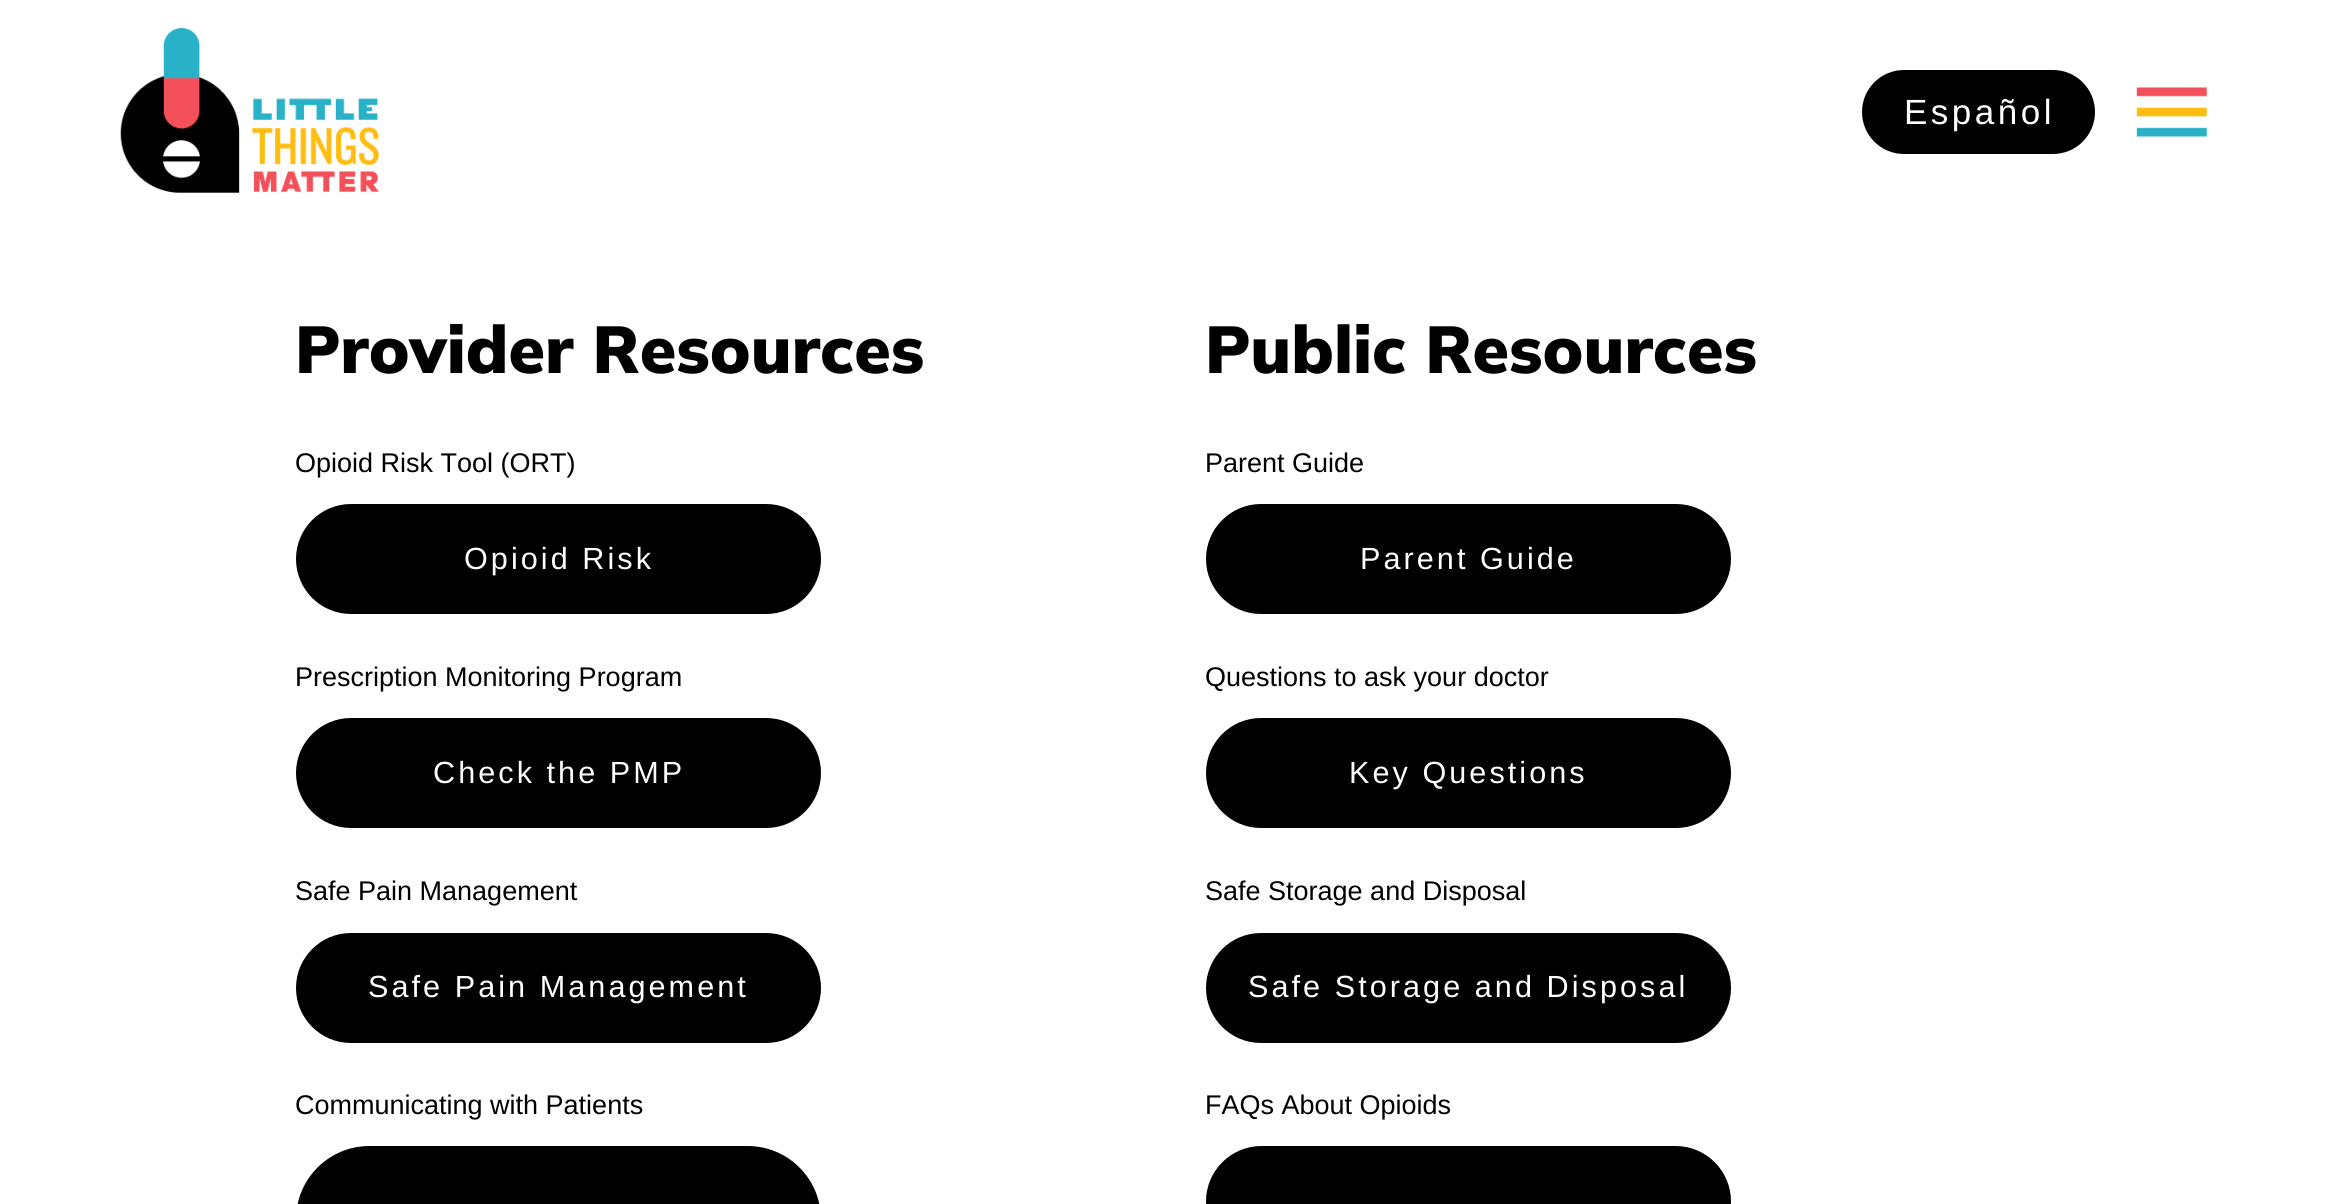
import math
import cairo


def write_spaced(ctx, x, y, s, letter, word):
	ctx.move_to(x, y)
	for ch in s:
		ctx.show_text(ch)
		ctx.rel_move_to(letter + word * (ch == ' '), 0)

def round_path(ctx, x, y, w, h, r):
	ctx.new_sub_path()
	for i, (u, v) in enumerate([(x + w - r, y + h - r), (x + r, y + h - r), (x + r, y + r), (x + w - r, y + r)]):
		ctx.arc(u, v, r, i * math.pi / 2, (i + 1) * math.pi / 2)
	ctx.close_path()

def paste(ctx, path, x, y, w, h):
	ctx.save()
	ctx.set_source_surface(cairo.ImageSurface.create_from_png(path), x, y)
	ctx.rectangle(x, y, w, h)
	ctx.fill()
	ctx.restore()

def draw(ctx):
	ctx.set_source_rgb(1, 1, 1)
	ctx.paint()
	paste(ctx, 'media/1.png', 120, 28, 259, 165)
	ctx.set_source_rgb(0, 0, 0)
	round_path(ctx, 1862, 70, 233, 84, 42)
	ctx.fill()
	ctx.select_font_face('Liberation Sans')
	ctx.set_font_size(35)
	ctx.set_source_rgb(1, 1, 1)
	write_spaced(ctx, 1904, 124, 'Español', 3.5, 0)
	paste(ctx, 'media/2.png', 2136, 87, 71, 50)
	ctx.select_font_face('Mulish Black')
	ctx.set_font_size(66.25)
	ctx.set_source_rgb(0, 0, 0)
	ctx.move_to(295, 373)
	ctx.show_text('Provider Resources')
	ctx.select_font_face('Liberation Sans')
	ctx.set_font_size(27)
	ctx.move_to(295, 472)
	ctx.show_text('Opioid Risk Tool (ORT)')
	round_path(ctx, 296, 504, 525, 110, 55)
	ctx.fill()
	ctx.set_font_size(30.6)
	ctx.set_source_rgb(1, 1, 1)
	write_spaced(ctx, 464, 569, 'Opioid Risk', 3.05, 0)
	ctx.set_font_size(27)
	ctx.set_source_rgb(0, 0, 0)
	ctx.move_to(295, 686)
	ctx.show_text('Prescription Monitoring Program')
	round_path(ctx, 296, 718, 525, 110, 55)
	ctx.fill()
	ctx.set_font_size(30.6)
	ctx.set_source_rgb(1, 1, 1)
	write_spaced(ctx, 433, 783, 'Check the PMP', 3.05, 0)
	ctx.set_font_size(27)
	ctx.set_source_rgb(0, 0, 0)
	ctx.move_to(295, 900)
	ctx.show_text('Safe Pain Management')
	round_path(ctx, 296, 933, 525, 110, 55)
	ctx.fill()
	ctx.set_font_size(30.6)
	ctx.set_source_rgb(1, 1, 1)
	write_spaced(ctx, 368, 997, 'Safe Pain Management', 3.05, 0)
	ctx.set_font_size(27)
	ctx.set_source_rgb(0, 0, 0)
	ctx.move_to(295, 1114)
	ctx.show_text('Communicating with Patients')
	round_path(ctx, 296, 1146, 525, 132, 73.5)
	ctx.fill()
	ctx.select_font_face('Mulish Black')
	ctx.set_font_size(66.25)
	ctx.move_to(1205, 373)
	ctx.show_text('Public Resources')
	ctx.select_font_face('Liberation Sans')
	ctx.set_font_size(27)
	ctx.move_to(1205, 472)
	ctx.show_text('Parent Guide')
	round_path(ctx, 1206, 504, 525, 110, 55)
	ctx.fill()
	ctx.set_font_size(30.6)
	ctx.set_source_rgb(1, 1, 1)
	write_spaced(ctx, 1360, 569, 'Parent Guide', 3.05, 0)
	ctx.set_font_size(27)
	ctx.set_source_rgb(0, 0, 0)
	ctx.move_to(1205, 686)
	ctx.show_text('Questions to ask your doctor')
	round_path(ctx, 1206, 718, 525, 110, 55)
	ctx.fill()
	ctx.set_font_size(30.6)
	ctx.set_source_rgb(1, 1, 1)
	write_spaced(ctx, 1349, 783, 'Key Questions', 3.05, 0)
	ctx.set_font_size(27)
	ctx.set_source_rgb(0, 0, 0)
	ctx.move_to(1205, 900)
	ctx.show_text('Safe Storage and Disposal')
	round_path(ctx, 1206, 933, 525, 110, 55)
	ctx.fill()
	ctx.set_font_size(30.6)
	ctx.set_source_rgb(1, 1, 1)
	write_spaced(ctx, 1248, 997, 'Safe Storage and Disposal', 3.05, 0)
	ctx.set_font_size(27)
	ctx.set_source_rgb(0, 0, 0)
	ctx.move_to(1205, 1114)
	ctx.show_text('FAQs About Opioids')
	round_path(ctx, 1206, 1146, 525, 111, 55.5)
	ctx.fill()


surface = cairo.ImageSurface(cairo.FORMAT_RGB24, 2339, 1204)
ctx = cairo.Context(surface)
options = cairo.FontOptions()
options.set_hint_metrics(cairo.HINT_METRICS_OFF)
options.set_hint_style(cairo.HINT_STYLE_NONE)
ctx.set_font_options(options)
ctx.set_miter_limit(4)
draw(ctx)
surface.write_to_png('image.png')
